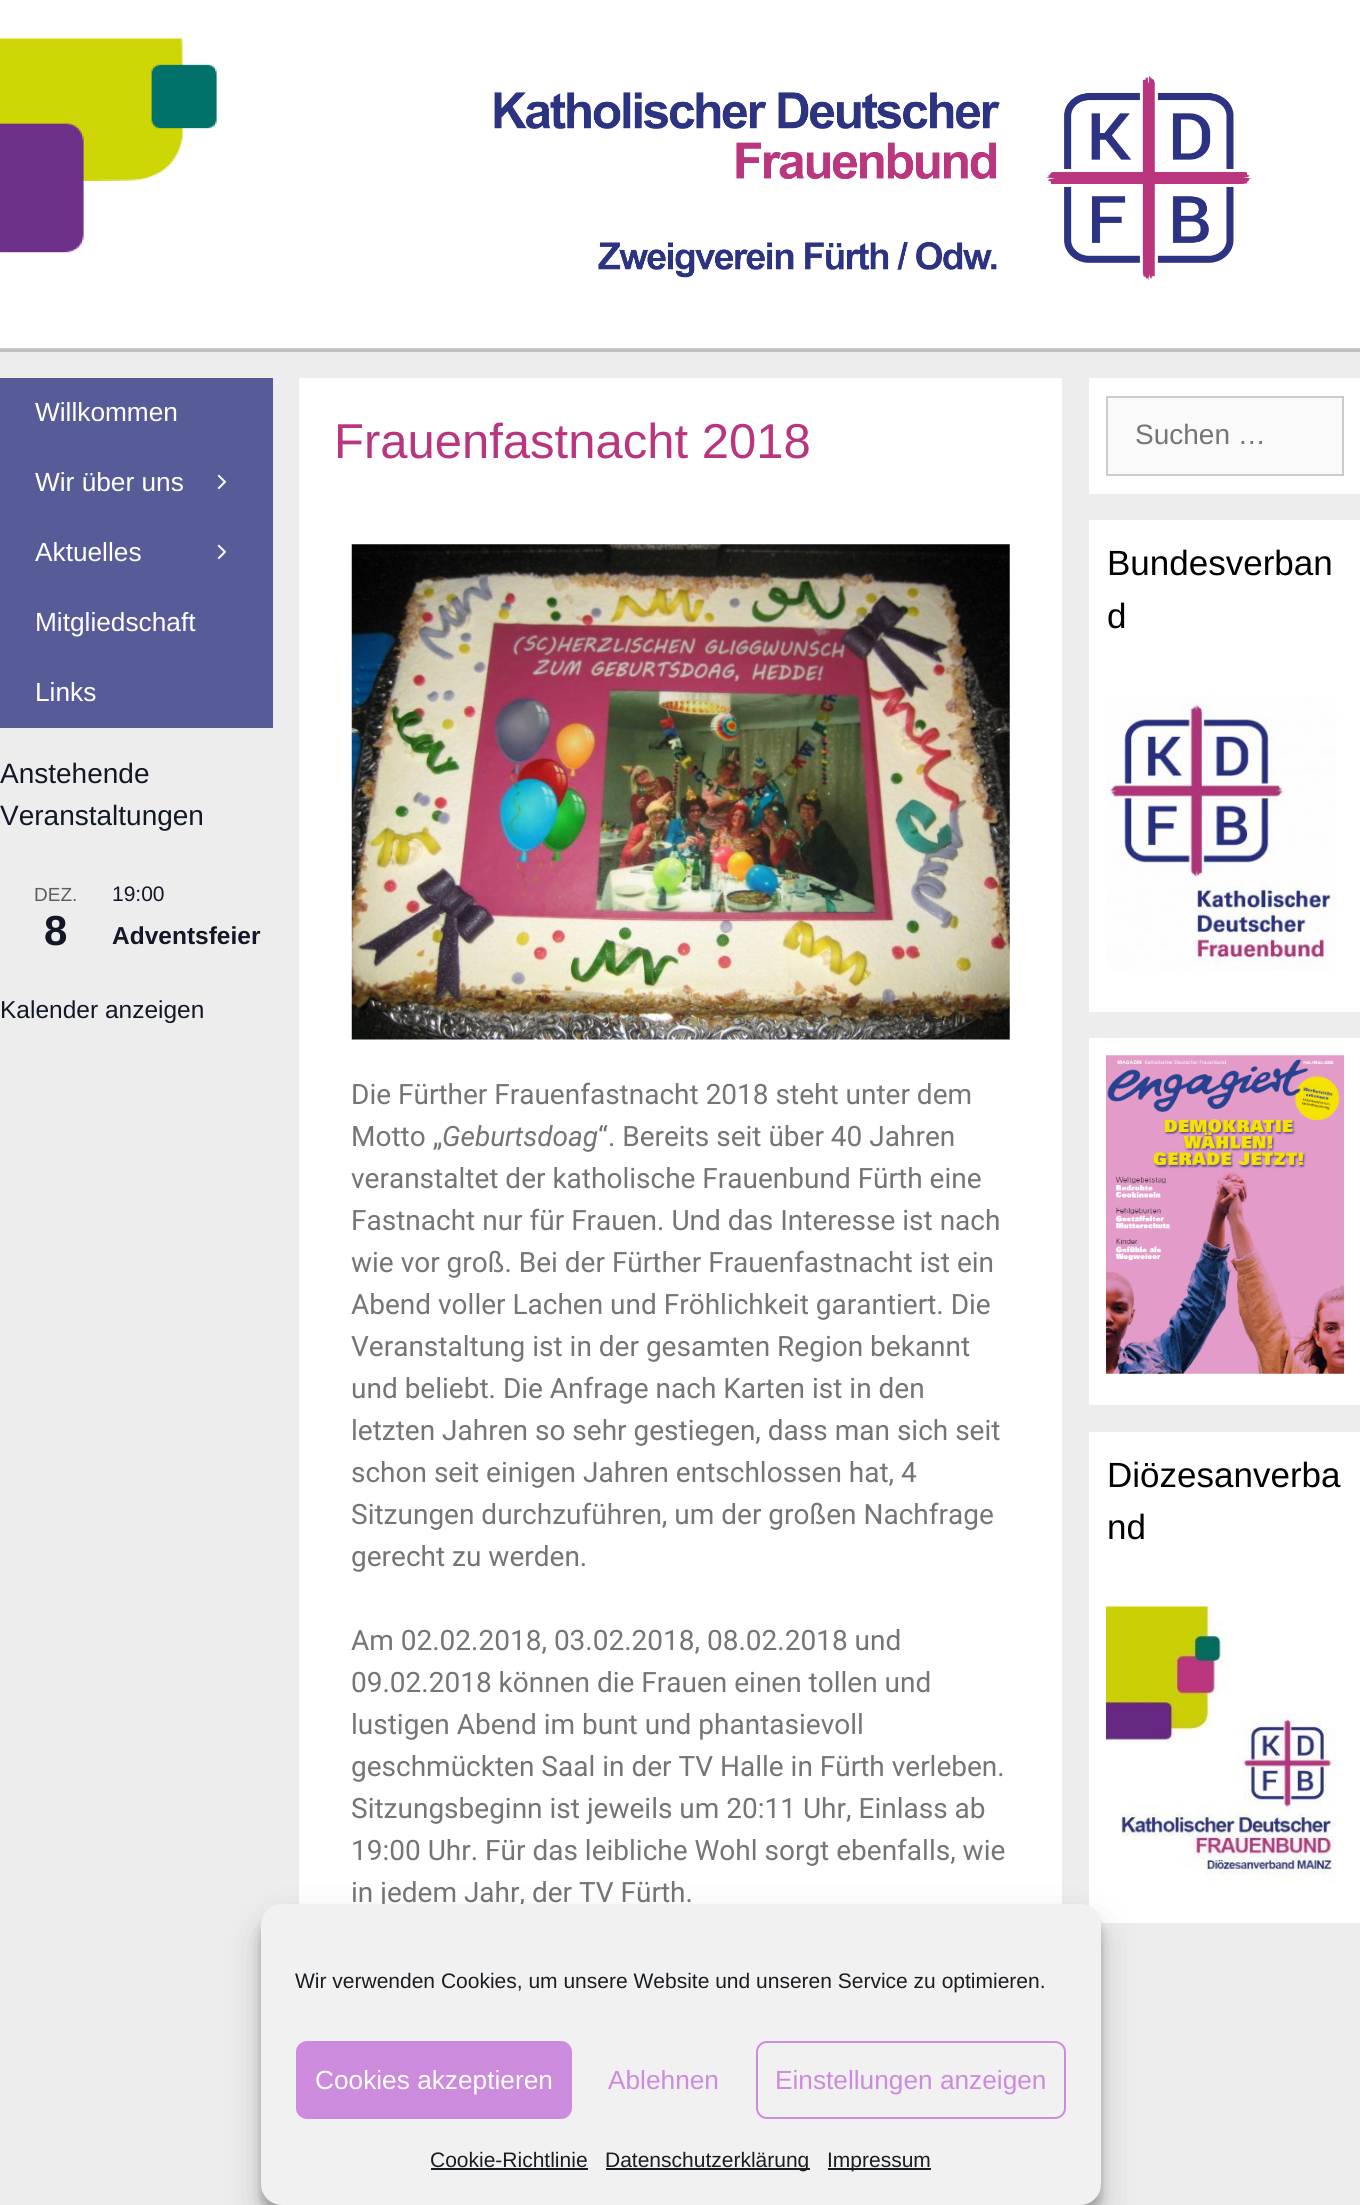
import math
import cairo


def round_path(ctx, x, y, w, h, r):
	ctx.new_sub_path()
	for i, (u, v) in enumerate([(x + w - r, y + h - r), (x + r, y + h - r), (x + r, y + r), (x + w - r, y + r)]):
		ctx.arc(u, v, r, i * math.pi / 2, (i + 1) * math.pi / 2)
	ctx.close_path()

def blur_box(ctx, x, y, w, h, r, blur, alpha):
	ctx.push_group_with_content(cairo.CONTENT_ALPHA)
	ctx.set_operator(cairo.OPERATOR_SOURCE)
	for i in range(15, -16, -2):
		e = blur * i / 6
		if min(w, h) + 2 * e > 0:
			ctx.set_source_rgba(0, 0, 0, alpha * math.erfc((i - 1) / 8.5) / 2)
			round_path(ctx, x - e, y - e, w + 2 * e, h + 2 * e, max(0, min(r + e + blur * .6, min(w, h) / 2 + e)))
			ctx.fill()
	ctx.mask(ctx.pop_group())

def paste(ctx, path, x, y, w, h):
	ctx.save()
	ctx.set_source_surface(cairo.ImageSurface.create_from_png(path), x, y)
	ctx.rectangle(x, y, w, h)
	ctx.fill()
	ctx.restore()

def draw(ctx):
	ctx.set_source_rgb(0.929, 0.929, 0.929)
	ctx.paint()
	ctx.set_source_rgb(1, 1, 1)
	ctx.rectangle(0, 0, 1360, 39)
	ctx.fill()
	ctx.set_source_rgb(0.753, 0.753, 0.753)
	ctx.rectangle(0, 348, 1360, 4)
	ctx.fill()
	paste(ctx, 'media/1.png', 0, 38, 1360, 311)
	paste(ctx, 'media/2.png', 494, 75, 758, 206)
	ctx.set_source_rgb(0.341, 0.361, 0.6)
	ctx.rectangle(0, 378, 273, 350)
	ctx.fill()
	ctx.select_font_face('Liberation Sans')
	ctx.set_font_size(26.25)
	ctx.set_source_rgb(1, 1, 1)
	ctx.move_to(35, 421)
	ctx.show_text('Willkommen')
	ctx.move_to(35, 491)
	ctx.show_text('Wir über uns')
	paste(ctx, 'media/3.png', 217, 474, 10, 16)
	ctx.move_to(35, 561)
	ctx.show_text('Aktuelles')
	paste(ctx, 'media/3.png', 217, 544, 10, 16)
	ctx.move_to(35, 631)
	ctx.show_text('Mitgliedschaft')
	ctx.move_to(35, 701)
	ctx.show_text('Links')
	ctx.set_font_size(28)
	ctx.set_source_rgb(0.078, 0.094, 0.153)
	ctx.move_to(0, 783)
	ctx.show_text('Anstehende')
	ctx.move_to(0, 825)
	ctx.show_text('Veranstaltungen')
	ctx.set_font_size(19)
	ctx.set_source_rgb(0.365, 0.365, 0.365)
	ctx.move_to(34, 901)
	ctx.show_text('DEZ.')
	ctx.select_font_face('Liberation Sans', cairo.FONT_SLANT_NORMAL, cairo.FONT_WEIGHT_BOLD)
	ctx.set_font_size(42)
	ctx.set_source_rgb(0.078, 0.094, 0.153)
	ctx.move_to(44, 945)
	ctx.show_text('8')
	ctx.select_font_face('Liberation Sans')
	ctx.set_font_size(21)
	ctx.move_to(112, 901)
	ctx.show_text('19:00')
	ctx.select_font_face('Liberation Sans', cairo.FONT_SLANT_NORMAL, cairo.FONT_WEIGHT_BOLD)
	ctx.set_font_size(24.5)
	ctx.move_to(112, 944)
	ctx.show_text('Adventsfeier')
	ctx.select_font_face('Liberation Sans')
	ctx.move_to(0, 1018)
	ctx.show_text('Kalender anzeigen')
	ctx.set_source_rgb(1, 1, 1)
	ctx.rectangle(299, 378, 763, 1526)
	ctx.fill()
	ctx.set_font_size(49)
	ctx.set_source_rgb(0.725, 0.208, 0.494)
	ctx.move_to(334, 458)
	ctx.show_text('Frauenfastnacht 2018')
	paste(ctx, 'media/4.png', 351, 544, 659, 496)
	ctx.select_font_face('Roboto')
	ctx.set_font_size(28)
	ctx.set_source_rgb(0.459, 0.459, 0.459)
	ctx.move_to(351, 1104)
	ctx.show_text('Die Fürther Frauenfastnacht 2018 steht unter dem')
	ctx.move_to(351, 1146)
	ctx.show_text('Motto „')
	ctx.select_font_face('Roboto', cairo.FONT_SLANT_ITALIC)
	ctx.move_to(442, 1146)
	ctx.show_text('Geburtsdoag')
	ctx.select_font_face('Roboto')
	for x, y, s in [
		(598, 1146, '“. Bereits seit über 40 Jahren'),
		(351, 1188, 'veranstaltet der katholische Frauenbund Fürth eine'),
		(351, 1230, 'Fastnacht nur für Frauen. Und das Interesse ist nach'),
		(351, 1272, 'wie vor groß. Bei der Fürther Frauenfastnacht ist ein'),
		(351, 1314, 'Abend voller Lachen und Fröhlichkeit garantiert. Die'),
		(351, 1356, 'Veranstaltung ist in der gesamten Region bekannt'),
		(351, 1398, 'und beliebt. Die Anfrage nach Karten ist in den'),
		(351, 1440, 'letzten Jahren so sehr gestiegen, dass man sich seit'),
		(351, 1482, 'schon seit einigen Jahren entschlossen hat, 4'),
		(351, 1524, 'Sitzungen durchzuführen, um der großen Nachfrage'),
		(351, 1566, 'gerecht zu werden.'),
		(351, 1650, 'Am 02.02.2018, 03.02.2018, 08.02.2018 und'),
		(351, 1692, '09.02.2018 können die Frauen einen tollen und'),
		(351, 1734, 'lustigen Abend im bunt und phantasievoll'),
		(351, 1776, 'geschmückten Saal in der TV Halle in Fürth verleben.'),
		(351, 1818, 'Sitzungsbeginn ist jeweils um 20:11 Uhr, Einlass ab'),
		(351, 1860, '19:00 Uhr. Für das leibliche Wohl sorgt ebenfalls, wie'),
		(351, 1902, 'in jedem Jahr, der TV Fürth.'),
	]:
		ctx.move_to(x, y)
		ctx.show_text(s)
	ctx.set_source_rgb(1, 1, 1)
	ctx.rectangle(1089, 378, 271, 116)
	ctx.fill()
	ctx.set_source_rgb(0.98, 0.98, 0.98)
	ctx.rectangle(1107, 397, 236, 78)
	ctx.fill_preserve()
	ctx.set_source_rgb(0.8, 0.8, 0.8)
	ctx.stroke()
	ctx.select_font_face('Liberation Sans')
	ctx.set_source_rgb(0.459, 0.459, 0.459)
	ctx.move_to(1135, 444)
	ctx.show_text('Suchen …')
	ctx.set_source_rgb(1, 1, 1)
	ctx.rectangle(1089, 520, 271, 492)
	ctx.fill()
	ctx.set_font_size(35)
	ctx.set_source_rgb(0, 0, 0)
	ctx.move_to(1107, 575)
	ctx.show_text('Bundesverban')
	ctx.move_to(1107, 628)
	ctx.show_text('d')
	paste(ctx, 'media/5.png', 1106, 695, 231, 275)
	ctx.set_source_rgb(1, 1, 1)
	ctx.rectangle(1089, 1038, 271, 367)
	ctx.fill()
	paste(ctx, 'media/6.png', 1106, 1055, 238, 319)
	ctx.rectangle(1089, 1432, 271, 491)
	ctx.fill()
	ctx.set_source_rgb(0, 0, 0)
	ctx.move_to(1107, 1487)
	ctx.show_text('Diözesanverba')
	ctx.move_to(1107, 1539)
	ctx.show_text('nd')
	paste(ctx, 'media/7.png', 1106, 1606, 231, 276)
	ctx.set_source_rgb(0, 0, 0)
	blur_box(ctx, 261, 1915, 840, 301, 21, 5, 0.23)
	blur_box(ctx, 261, 1922, 840, 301, 21, 17.5, 0.19)
	ctx.set_source_rgb(0.945, 0.945, 0.945)
	round_path(ctx, 261, 1904, 840, 301, 21)
	ctx.fill()
	ctx.set_font_size(21)
	ctx.set_source_rgb(0.098, 0.118, 0.137)
	ctx.move_to(295, 1988)
	ctx.show_text('Wir verwenden Cookies, um unsere Website und unseren Service zu optimieren.')
	ctx.set_source_rgb(0.8, 0.545, 0.867)
	round_path(ctx, 297, 2042, 274, 76, 10)
	ctx.fill_preserve()
	ctx.stroke()
	ctx.set_font_size(26.25)
	ctx.set_source_rgb(1, 1, 1)
	ctx.move_to(315, 2089)
	ctx.show_text('Cookies akzeptieren')
	ctx.set_source_rgb(0.8, 0.545, 0.867)
	ctx.move_to(608, 2089)
	ctx.show_text('Ablehnen')
	round_path(ctx, 757, 2042, 308, 76, 10)
	ctx.stroke()
	ctx.move_to(775, 2089)
	ctx.show_text('Einstellungen anzeigen')
	ctx.set_font_size(21)
	ctx.set_source_rgb(0.098, 0.118, 0.137)
	ctx.move_to(430, 2167)
	ctx.show_text('Cookie-Richtlinie')
	ctx.rectangle(431, 2168, 157, 2)
	ctx.fill()
	ctx.rectangle(606, 2168, 204, 2)
	ctx.fill()
	ctx.move_to(605, 2167)
	ctx.show_text('Datenschutzerklärung')
	ctx.rectangle(828, 2168, 103, 2)
	ctx.fill()
	ctx.move_to(827, 2167)
	ctx.show_text('Impressum')


surface = cairo.ImageSurface(cairo.FORMAT_RGB24, 1360, 2205)
ctx = cairo.Context(surface)
options = cairo.FontOptions()
options.set_hint_metrics(cairo.HINT_METRICS_OFF)
options.set_hint_style(cairo.HINT_STYLE_NONE)
ctx.set_font_options(options)
ctx.set_miter_limit(4)
draw(ctx)
surface.write_to_png('image.png')
